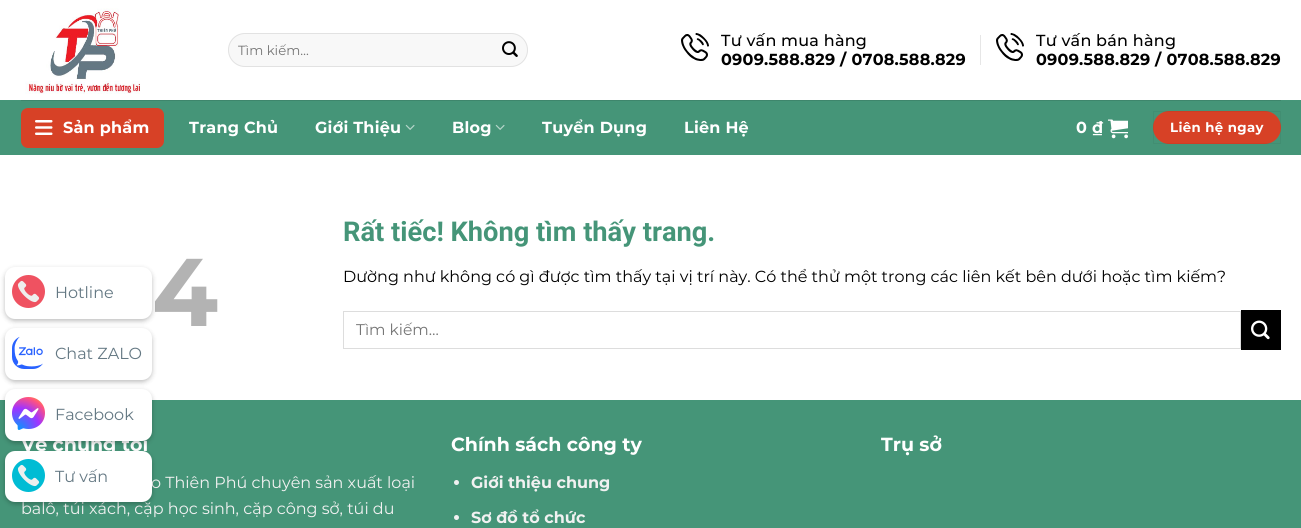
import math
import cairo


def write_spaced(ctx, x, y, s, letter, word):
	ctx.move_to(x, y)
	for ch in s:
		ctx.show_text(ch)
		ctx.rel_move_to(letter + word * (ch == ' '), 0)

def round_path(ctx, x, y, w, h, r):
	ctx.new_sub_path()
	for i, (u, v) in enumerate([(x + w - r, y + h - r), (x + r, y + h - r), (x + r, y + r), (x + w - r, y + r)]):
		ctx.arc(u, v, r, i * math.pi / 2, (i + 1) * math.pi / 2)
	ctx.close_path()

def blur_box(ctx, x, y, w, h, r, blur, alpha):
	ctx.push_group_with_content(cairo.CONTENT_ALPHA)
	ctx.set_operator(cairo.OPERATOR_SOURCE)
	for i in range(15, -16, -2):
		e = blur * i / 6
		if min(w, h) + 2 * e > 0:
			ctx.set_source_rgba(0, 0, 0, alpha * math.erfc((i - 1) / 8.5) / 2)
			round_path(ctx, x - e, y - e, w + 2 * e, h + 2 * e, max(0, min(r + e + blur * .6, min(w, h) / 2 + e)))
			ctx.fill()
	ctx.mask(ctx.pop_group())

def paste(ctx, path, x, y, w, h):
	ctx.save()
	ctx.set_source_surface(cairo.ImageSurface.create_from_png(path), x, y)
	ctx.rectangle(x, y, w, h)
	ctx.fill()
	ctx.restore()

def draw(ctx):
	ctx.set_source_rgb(1, 1, 1)
	ctx.paint()
	paste(ctx, 'media/1.png', 25, 8, 115, 86)
	ctx.set_source_rgb(0.969, 0.969, 0.969)
	round_path(ctx, 228, 33, 300, 34, 17)
	ctx.fill()
	round_path(ctx, 228.5, 33.5, 299, 33, 16.5)
	ctx.set_source_rgba(0, 0, 0, 0.09)
	ctx.set_line_width(1)
	ctx.stroke()
	ctx.select_font_face('Montserrat')
	ctx.set_font_size(13.25)
	ctx.set_source_rgb(0.459, 0.459, 0.459)
	ctx.move_to(238, 55)
	ctx.show_text('Tìm kiếm…')
	paste(ctx, 'media/2.png', 502, 41, 16, 16)
	paste(ctx, 'media/3.png', 681, 33, 28, 28)
	ctx.select_font_face('Montserrat Medium')
	ctx.set_font_size(16)
	ctx.set_source_rgb(0, 0, 0)
	write_spaced(ctx, 721, 46, 'Tư vấn mua hàng', 0.25, 0)
	ctx.select_font_face('Montserrat', cairo.FONT_SLANT_NORMAL, cairo.FONT_WEIGHT_BOLD)
	write_spaced(ctx, 721, 65, '0909.588.829 / 0708.588.829', 0.25, 0)
	ctx.set_source_rgb(0.902, 0.902, 0.902)
	ctx.rectangle(980, 35, 1, 30)
	ctx.fill()
	paste(ctx, 'media/4.png', 996, 33, 28, 28)
	ctx.select_font_face('Montserrat Medium')
	ctx.set_source_rgb(0, 0, 0)
	write_spaced(ctx, 1036, 46, 'Tư vấn bán hàng', 0.25, 0)
	ctx.select_font_face('Montserrat', cairo.FONT_SLANT_NORMAL, cairo.FONT_WEIGHT_BOLD)
	write_spaced(ctx, 1036, 65, '0909.588.829 / 0708.588.829', 0.25, 0)
	ctx.set_source_rgb(0.271, 0.584, 0.471)
	ctx.rectangle(0, 100, 1301, 55)
	ctx.fill()
	ctx.set_source_rgb(0.243, 0.525, 0.424)
	ctx.rectangle(21, 100, 1260, 1)
	ctx.fill()
	ctx.set_source_rgb(0.843, 0.255, 0.149)
	round_path(ctx, 21, 108, 143, 40, 7)
	ctx.fill()
	paste(ctx, 'media/5.png', 35, 120, 18, 15)
	ctx.set_source_rgb(1, 1, 1)
	for x, y, s in [
		(63, 133, 'Sản phẩm'),
		(189, 133, 'Trang Chủ'),
		(315, 133, 'Giới Thiệu'),
	]:
		write_spaced(ctx, x, y, s, 0.25, 0)
	paste(ctx, 'media/6.png', 405, 124, 10, 6)
	write_spaced(ctx, 452, 133, 'Blog', 0.25, 0)
	paste(ctx, 'media/6.png', 495, 124, 10, 6)
	for x, y, s in [
		(542, 133, 'Tuyển Dụng'),
		(684, 133, 'Liên Hệ'),
		(1076, 133, '0 ₫'),
	]:
		write_spaced(ctx, x, y, s, 0.25, 0)
	paste(ctx, 'media/7.png', 1108, 119, 20, 20)
	ctx.set_source_rgb(0.843, 0.255, 0.149)
	round_path(ctx, 1153, 111, 128, 33, 16.5)
	ctx.fill()
	ctx.rectangle(1153.5, 111.5, 127, 32)
	ctx.set_source_rgba(0, 0, 0, 0.05)
	ctx.stroke()
	ctx.set_font_size(13.25)
	ctx.set_source_rgb(1, 1, 1)
	write_spaced(ctx, 1170, 132, 'Liên hệ ngay', 0.4, 0)
	ctx.set_font_size(96)
	ctx.set_source_rgb(0.702, 0.702, 0.702)
	ctx.move_to(152, 326)
	ctx.show_text('4')
	ctx.select_font_face('Roboto', cairo.FONT_SLANT_NORMAL, cairo.FONT_WEIGHT_BOLD)
	ctx.set_font_size(27.25)
	ctx.set_source_rgb(0.271, 0.584, 0.471)
	ctx.move_to(343, 241)
	ctx.show_text('Rất tiếc! Không tìm thấy trang.')
	ctx.select_font_face('Montserrat')
	ctx.set_font_size(16)
	ctx.set_source_rgb(0, 0, 0)
	ctx.move_to(343, 282)
	ctx.show_text('Dường như không có gì được tìm thấy tại vị trí này. Có thể thử một trong các liên kết bên dưới hoặc tìm kiếm?')
	ctx.rectangle(343.5, 311.5, 897, 37)
	ctx.set_source_rgb(0.867, 0.867, 0.867)
	ctx.stroke()
	ctx.set_font_size(15.5)
	ctx.set_source_rgb(0.459, 0.459, 0.459)
	ctx.move_to(356, 335)
	ctx.show_text('Tìm kiếm…')
	ctx.set_source_rgb(0, 0, 0)
	ctx.rectangle(1241, 310, 40, 40)
	ctx.fill()
	paste(ctx, 'media/8.png', 1251, 320, 19, 20)
	ctx.set_source_rgb(0.271, 0.584, 0.471)
	ctx.rectangle(0, 400, 1301, 128)
	ctx.fill()
	ctx.select_font_face('Montserrat', cairo.FONT_SLANT_NORMAL, cairo.FONT_WEIGHT_BOLD)
	ctx.set_font_size(19)
	ctx.set_source_rgb(1, 1, 1)
	ctx.move_to(21, 451)
	ctx.show_text('Về chúng tôi')
	ctx.select_font_face('Montserrat')
	ctx.set_font_size(16)
	ctx.set_source_rgb(0.945, 0.945, 0.945)
	ctx.move_to(151, 488)
	ctx.show_text('o Thiên Phú chuyên sản xuất loại')
	ctx.move_to(21, 514)
	ctx.show_text('balô, túi xách, cặp học sinh, cặp công sở, túi du')
	ctx.select_font_face('Montserrat', cairo.FONT_SLANT_NORMAL, cairo.FONT_WEIGHT_BOLD)
	ctx.set_font_size(19)
	ctx.set_source_rgb(1, 1, 1)
	ctx.move_to(451, 451)
	ctx.show_text('Chính sách công ty')
	ctx.set_source_rgb(0.945, 0.945, 0.945)
	ctx.new_path()
	ctx.arc(456.5, 482.5, 2.5, 0, 2 * math.pi)
	ctx.fill()
	ctx.set_font_size(16)
	ctx.move_to(471, 488)
	ctx.show_text('Giới thiệu chung')
	ctx.new_path()
	ctx.arc(456.5, 517.5, 2.5, 0, 2 * math.pi)
	ctx.fill()
	ctx.move_to(471, 523)
	ctx.show_text('Sơ đồ tổ chức')
	ctx.set_font_size(19)
	ctx.set_source_rgb(1, 1, 1)
	ctx.move_to(881, 451)
	ctx.show_text('Trụ sở')
	ctx.set_source_rgb(0, 0, 0)
	blur_box(ctx, 5, 269, 147, 52, 10, 2.5, 0.26)
	ctx.set_source_rgb(1, 1, 1)
	round_path(ctx, 5, 267, 147, 52, 10)
	ctx.fill()
	paste(ctx, 'media/9.png', 12, 275, 33, 33)
	ctx.select_font_face('Montserrat')
	ctx.set_font_size(16)
	ctx.set_source_rgb(0.392, 0.471, 0.514)
	ctx.move_to(55, 298)
	ctx.show_text('Hotline')
	ctx.set_source_rgb(0, 0, 0)
	blur_box(ctx, 5, 330, 147, 52, 10, 2.5, 0.26)
	ctx.set_source_rgb(1, 1, 1)
	round_path(ctx, 5, 328, 147, 52, 10)
	ctx.fill()
	paste(ctx, 'media/10.png', 12, 336, 31, 33)
	ctx.set_source_rgb(0.392, 0.471, 0.514)
	ctx.move_to(55, 359)
	ctx.show_text('Chat ZALO')
	ctx.set_source_rgb(0, 0, 0)
	blur_box(ctx, 5, 391, 147, 52, 10, 2.5, 0.26)
	ctx.set_source_rgb(1, 1, 1)
	round_path(ctx, 5, 389, 147, 52, 10)
	ctx.fill()
	paste(ctx, 'media/11.png', 12, 397, 33, 33)
	ctx.set_source_rgb(0.392, 0.471, 0.514)
	ctx.move_to(55, 420)
	ctx.show_text('Facebook')
	ctx.set_source_rgb(0, 0, 0)
	blur_box(ctx, 5, 453, 147, 51, 10, 2.5, 0.26)
	ctx.set_source_rgb(1, 1, 1)
	round_path(ctx, 5, 451, 147, 51, 10)
	ctx.fill()
	paste(ctx, 'media/12.png', 12, 459, 33, 33)
	ctx.set_source_rgb(0.392, 0.471, 0.514)
	ctx.move_to(55, 482)
	ctx.show_text('Tư vấn')


surface = cairo.ImageSurface(cairo.FORMAT_RGB24, 1301, 528)
ctx = cairo.Context(surface)
options = cairo.FontOptions()
options.set_hint_metrics(cairo.HINT_METRICS_OFF)
options.set_hint_style(cairo.HINT_STYLE_NONE)
ctx.set_font_options(options)
ctx.set_miter_limit(4)
draw(ctx)
surface.write_to_png('image.png')
